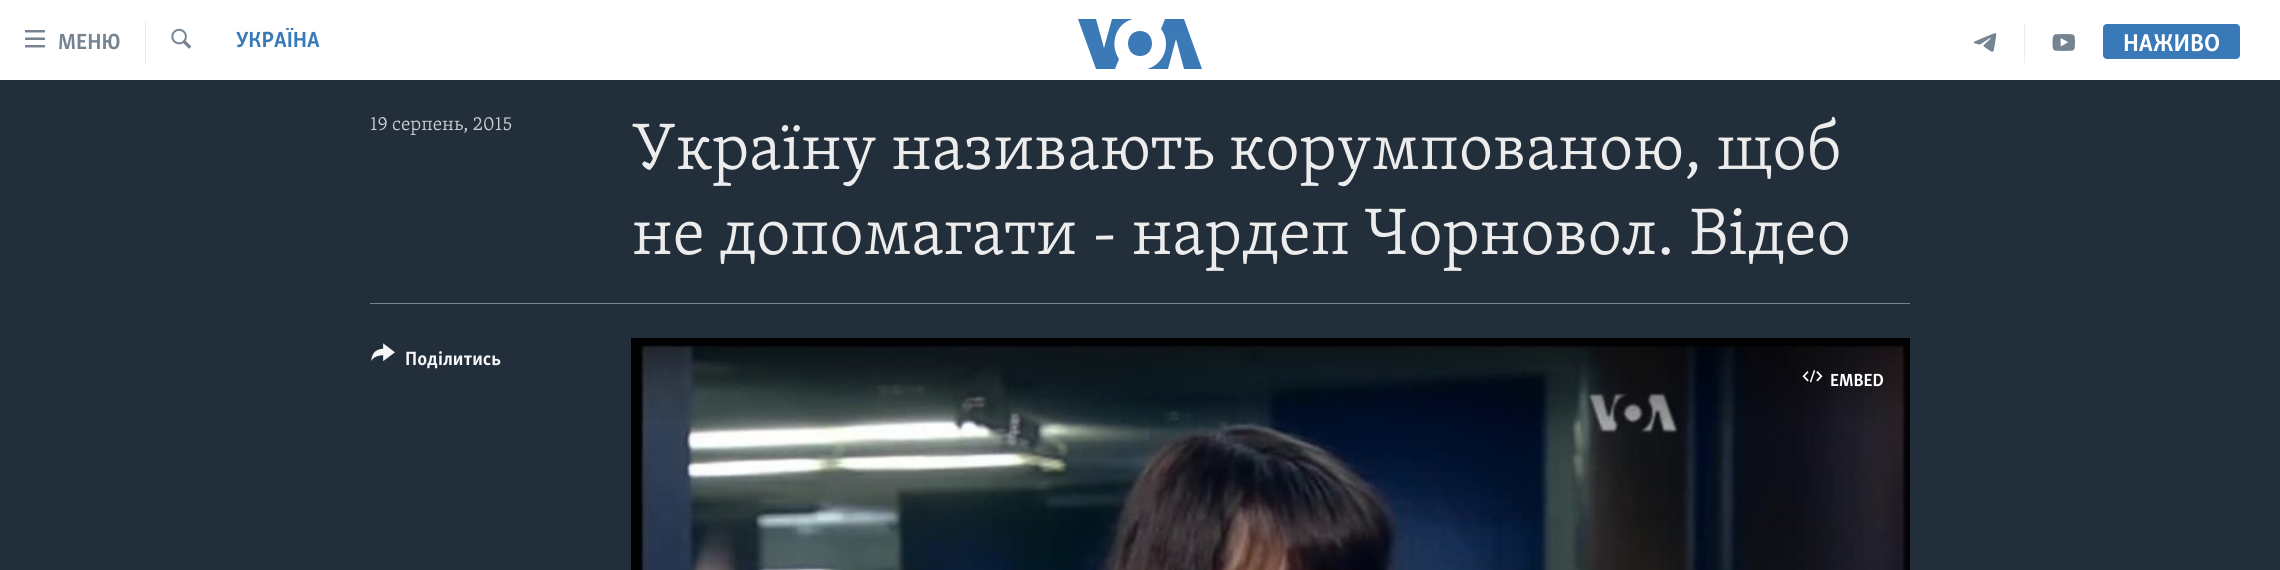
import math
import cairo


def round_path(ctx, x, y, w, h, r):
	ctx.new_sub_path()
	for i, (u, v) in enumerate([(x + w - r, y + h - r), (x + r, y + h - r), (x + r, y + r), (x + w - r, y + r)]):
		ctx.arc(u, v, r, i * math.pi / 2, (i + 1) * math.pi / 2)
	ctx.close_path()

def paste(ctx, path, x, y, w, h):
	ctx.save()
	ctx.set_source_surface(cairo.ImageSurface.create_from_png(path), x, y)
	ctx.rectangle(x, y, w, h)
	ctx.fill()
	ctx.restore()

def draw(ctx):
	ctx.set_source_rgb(1, 1, 1)
	ctx.paint()
	paste(ctx, 'media/1.png', 25, 30, 20, 18)
	ctx.select_font_face('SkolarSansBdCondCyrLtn', cairo.FONT_SLANT_NORMAL, cairo.FONT_WEIGHT_BOLD)
	ctx.set_font_size(22.5)
	ctx.set_source_rgb(0.463, 0.518, 0.573)
	ctx.move_to(58, 49)
	ctx.show_text('МЕНЮ')
	ctx.set_source_rgb(0.922, 0.922, 0.922)
	ctx.rectangle(145, 21, 1, 44)
	ctx.fill()
	paste(ctx, 'media/2.png', 171, 28, 21, 21)
	ctx.save()
	ctx.rectangle(236, 28, 84, 31)
	ctx.clip()
	ctx.set_source_rgb(0.227, 0.475, 0.718)
	ctx.move_to(236, 47)
	ctx.show_text('УКРАЇНА')
	ctx.restore()
	ctx.set_source_rgb(0.231, 0.475, 0.718)
	ctx.new_path()
	ctx.move_to(1119, 59)
	ctx.line_to(1115, 69)
	ctx.line_to(1096, 69)
	ctx.line_to(1078, 19)
	ctx.line_to(1096, 19)
	ctx.line_to(1104, 48)
	ctx.line_to(1112, 19)
	ctx.line_to(1133, 19)
	ctx.curve_to(1116, 23, 1109, 44, 1119, 59)
	ctx.close_path()
	ctx.move_to(1140, 31)
	ctx.curve_to(1124, 31, 1124, 56, 1140, 56)
	ctx.curve_to(1156, 56, 1156, 31, 1140, 31)
	ctx.close_path()
	ctx.move_to(1166, 44)
	ctx.curve_to(1166, 56, 1158, 66, 1147, 69)
	ctx.line_to(1168, 69)
	ctx.line_to(1176, 39)
	ctx.line_to(1184, 69)
	ctx.line_to(1202, 69)
	ctx.line_to(1184, 19)
	ctx.line_to(1165, 19)
	ctx.line_to(1161, 29)
	ctx.curve_to(1164, 33, 1166, 38, 1166, 44)
	ctx.close_path()
	ctx.fill()
	ctx.set_source_rgb(0.922, 0.922, 0.922)
	ctx.rectangle(2024, 24, 1, 39)
	ctx.fill()
	paste(ctx, 'media/3.png', 1973, 33, 24, 19)
	paste(ctx, 'media/4.png', 2052, 34, 23, 17)
	ctx.set_source_rgb(0.227, 0.475, 0.718)
	round_path(ctx, 2103, 24, 137, 35, 4)
	ctx.fill()
	ctx.set_font_size(25)
	ctx.set_source_rgb(1, 1, 1)
	ctx.move_to(2123, 51)
	ctx.show_text('НАЖИВО')
	ctx.set_source_rgb(0.133, 0.184, 0.227)
	ctx.rectangle(0, 80, 2280, 490)
	ctx.fill()
	ctx.select_font_face('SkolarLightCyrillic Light')
	ctx.set_font_size(19.75)
	ctx.set_source_rgb(0.796, 0.82, 0.839)
	ctx.move_to(370, 130)
	ctx.show_text('19 серпень, 2015')
	ctx.set_font_size(67.5)
	ctx.set_source_rgb(0.922, 0.922, 0.922)
	ctx.move_to(632, 169)
	ctx.show_text('Україну називають корумпованою, щоб')
	ctx.move_to(632, 254)
	ctx.show_text('не допомагати - нардеп Чорновол. Відео')
	ctx.set_source_rgb(0.463, 0.518, 0.573)
	ctx.rectangle(370, 303, 1540, 1)
	ctx.fill()
	paste(ctx, 'media/5.png', 371, 343, 24, 18)
	ctx.select_font_face('SkolarSansBdCondCyrLtn', cairo.FONT_SLANT_NORMAL, cairo.FONT_WEIGHT_BOLD)
	ctx.set_font_size(19.75)
	ctx.set_source_rgb(0.965, 0.969, 0.973)
	ctx.move_to(405, 365)
	ctx.show_text('Поділитись')
	ctx.set_source_rgb(0, 0, 0)
	ctx.rectangle(631, 338, 1279, 232)
	ctx.fill()
	paste(ctx, 'media/6.png', 639, 345, 1271, 225)
	gradient = cairo.LinearGradient(1271, 337, 1271, 425)
	gradient.add_color_stop_rgba(0, 0, 0, 0, 0.5)
	gradient.add_color_stop_rgba(1, 0, 0, 0, 0)
	ctx.set_source(gradient)
	ctx.rectangle(641, 345, 1265, 76)
	ctx.fill()
	paste(ctx, 'media/7.png', 1802, 370, 21, 13)
	ctx.set_font_size(18)
	ctx.set_source_rgb(1, 1, 1)
	ctx.move_to(1830, 386)
	ctx.show_text('EMBED')


surface = cairo.ImageSurface(cairo.FORMAT_RGB24, 2280, 570)
ctx = cairo.Context(surface)
options = cairo.FontOptions()
options.set_hint_metrics(cairo.HINT_METRICS_OFF)
options.set_hint_style(cairo.HINT_STYLE_NONE)
ctx.set_font_options(options)
ctx.set_miter_limit(4)
draw(ctx)
surface.write_to_png('image.png')
